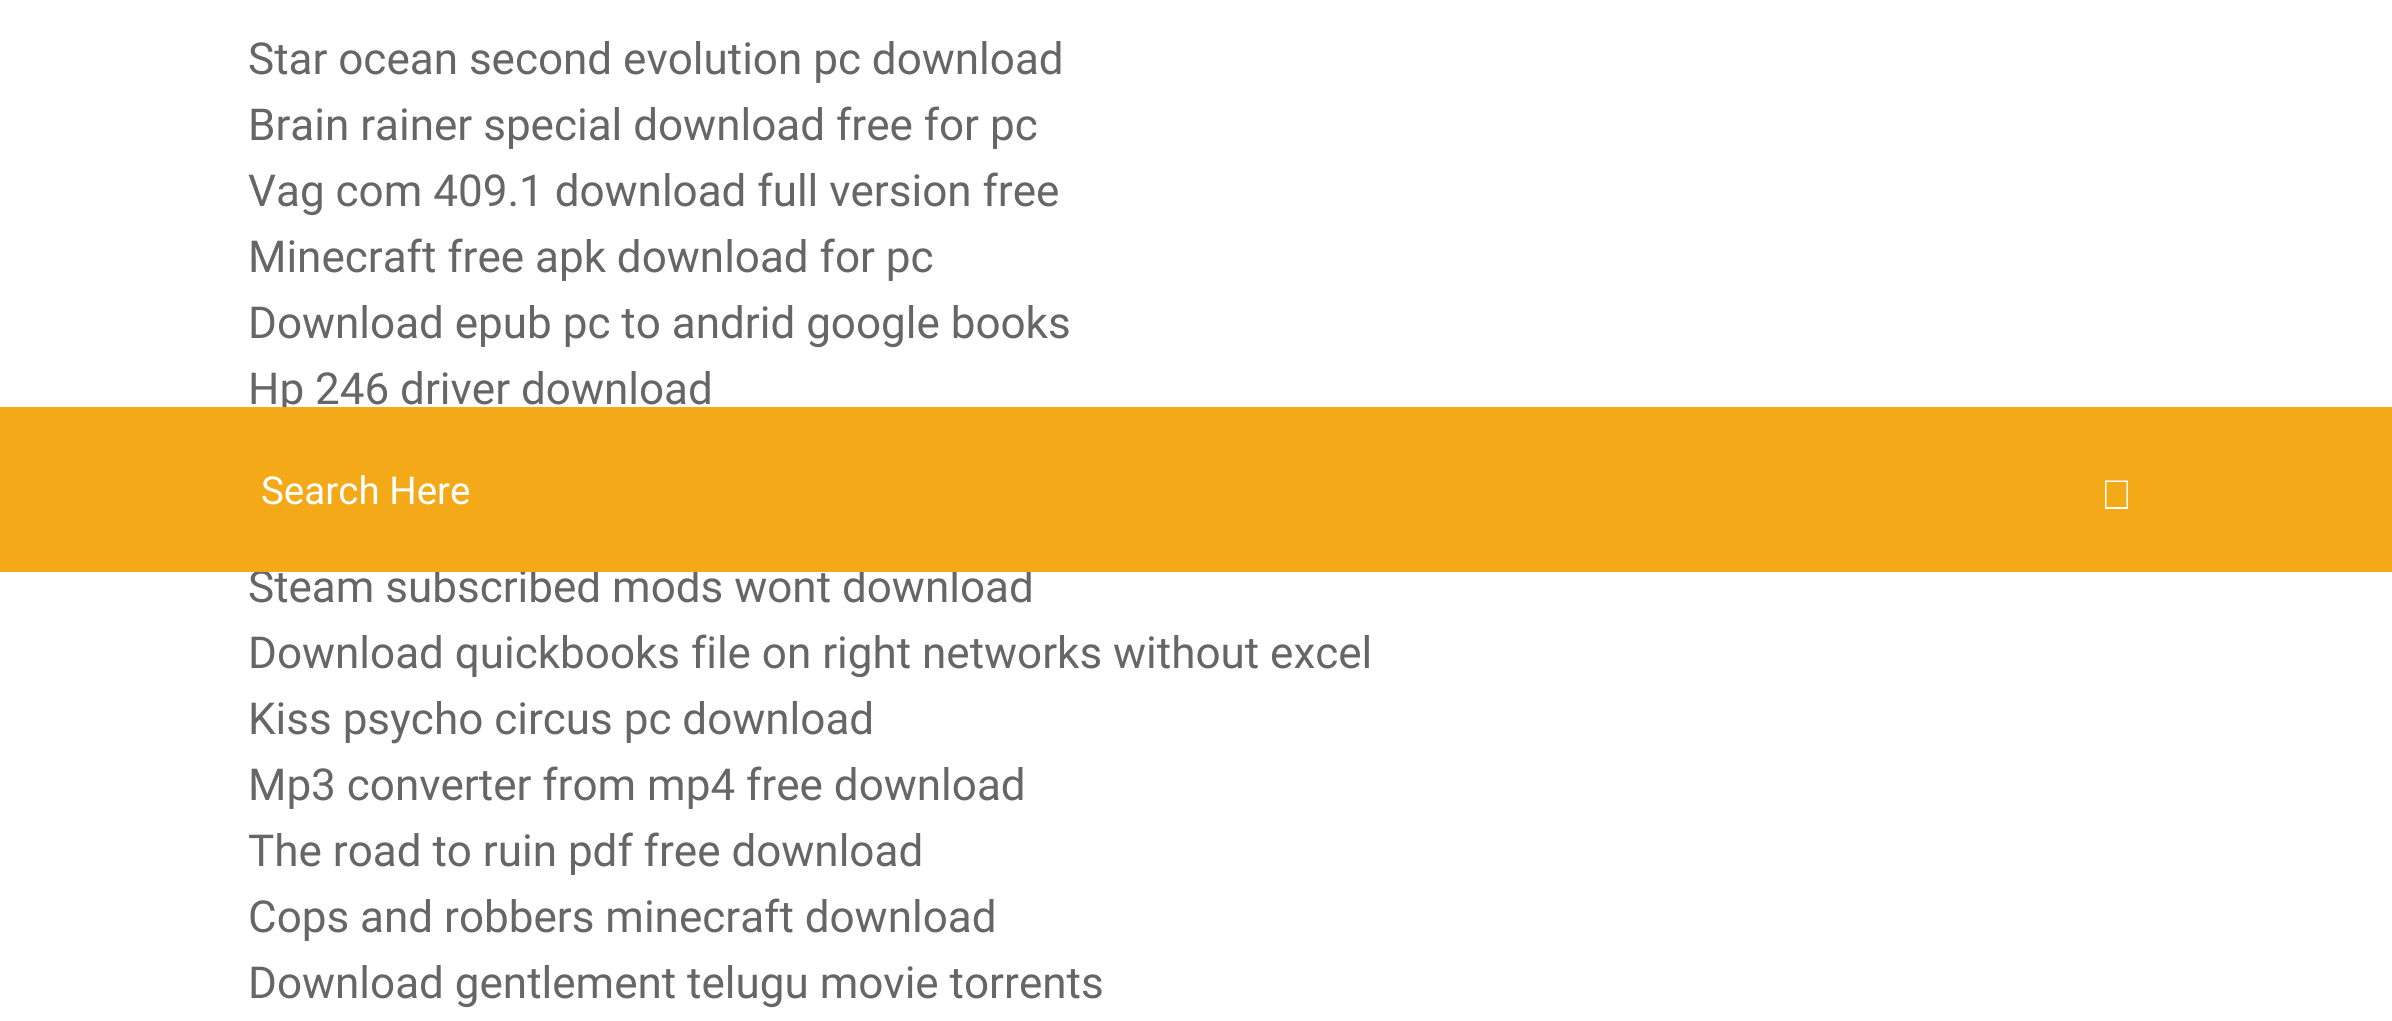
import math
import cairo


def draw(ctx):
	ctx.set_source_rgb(1, 1, 1)
	ctx.paint()
	ctx.select_font_face('Roboto')
	ctx.set_font_size(44)
	ctx.set_source_rgb(0.4, 0.4, 0.4)
	for x, y, s in [
		(248, 74, 'Star ocean second evolution pc download'),
		(248, 140, 'Brain rainer special download free for pc'),
		(248, 206, 'Vag com 409.1 download full version free'),
		(248, 272, 'Minecraft free apk download for pc'),
		(248, 338, 'Download epub pc to andrid google books'),
		(248, 404, 'Hp 246 driver download'),
		(248, 602, 'Steam subscribed mods wont download'),
		(248, 668, 'Download quickbooks file on right networks without excel'),
		(248, 734, 'Kiss psycho circus pc download'),
		(248, 800, 'Mp3 converter from mp4 free download'),
		(248, 866, 'The road to ruin pdf free download'),
		(248, 932, 'Cops and robbers minecraft download'),
		(248, 998, 'Download gentlement telugu movie torrents'),
	]:
		ctx.move_to(x, y)
		ctx.show_text(s)
	ctx.set_source_rgb(0.957, 0.663, 0.098)
	ctx.rectangle(0, 407, 2392, 165)
	ctx.fill()
	ctx.set_font_size(38.5)
	ctx.set_source_rgb(1, 1, 1)
	ctx.move_to(261, 504)
	ctx.show_text('Search Here')
	ctx.new_path()
	ctx.move_to(2105, 480.5)
	ctx.line_to(2128, 480.5)
	ctx.line_to(2128, 509)
	ctx.line_to(2105, 509)
	ctx.close_path()
	ctx.move_to(2106.5, 482)
	ctx.line_to(2106.5, 507)
	ctx.line_to(2126.5, 507)
	ctx.line_to(2126.5, 482)
	ctx.close_path()
	ctx.fill()


surface = cairo.ImageSurface(cairo.FORMAT_RGB24, 2392, 1021)
ctx = cairo.Context(surface)
options = cairo.FontOptions()
options.set_hint_metrics(cairo.HINT_METRICS_OFF)
options.set_hint_style(cairo.HINT_STYLE_NONE)
ctx.set_font_options(options)
ctx.set_miter_limit(4)
draw(ctx)
surface.write_to_png('image.png')
